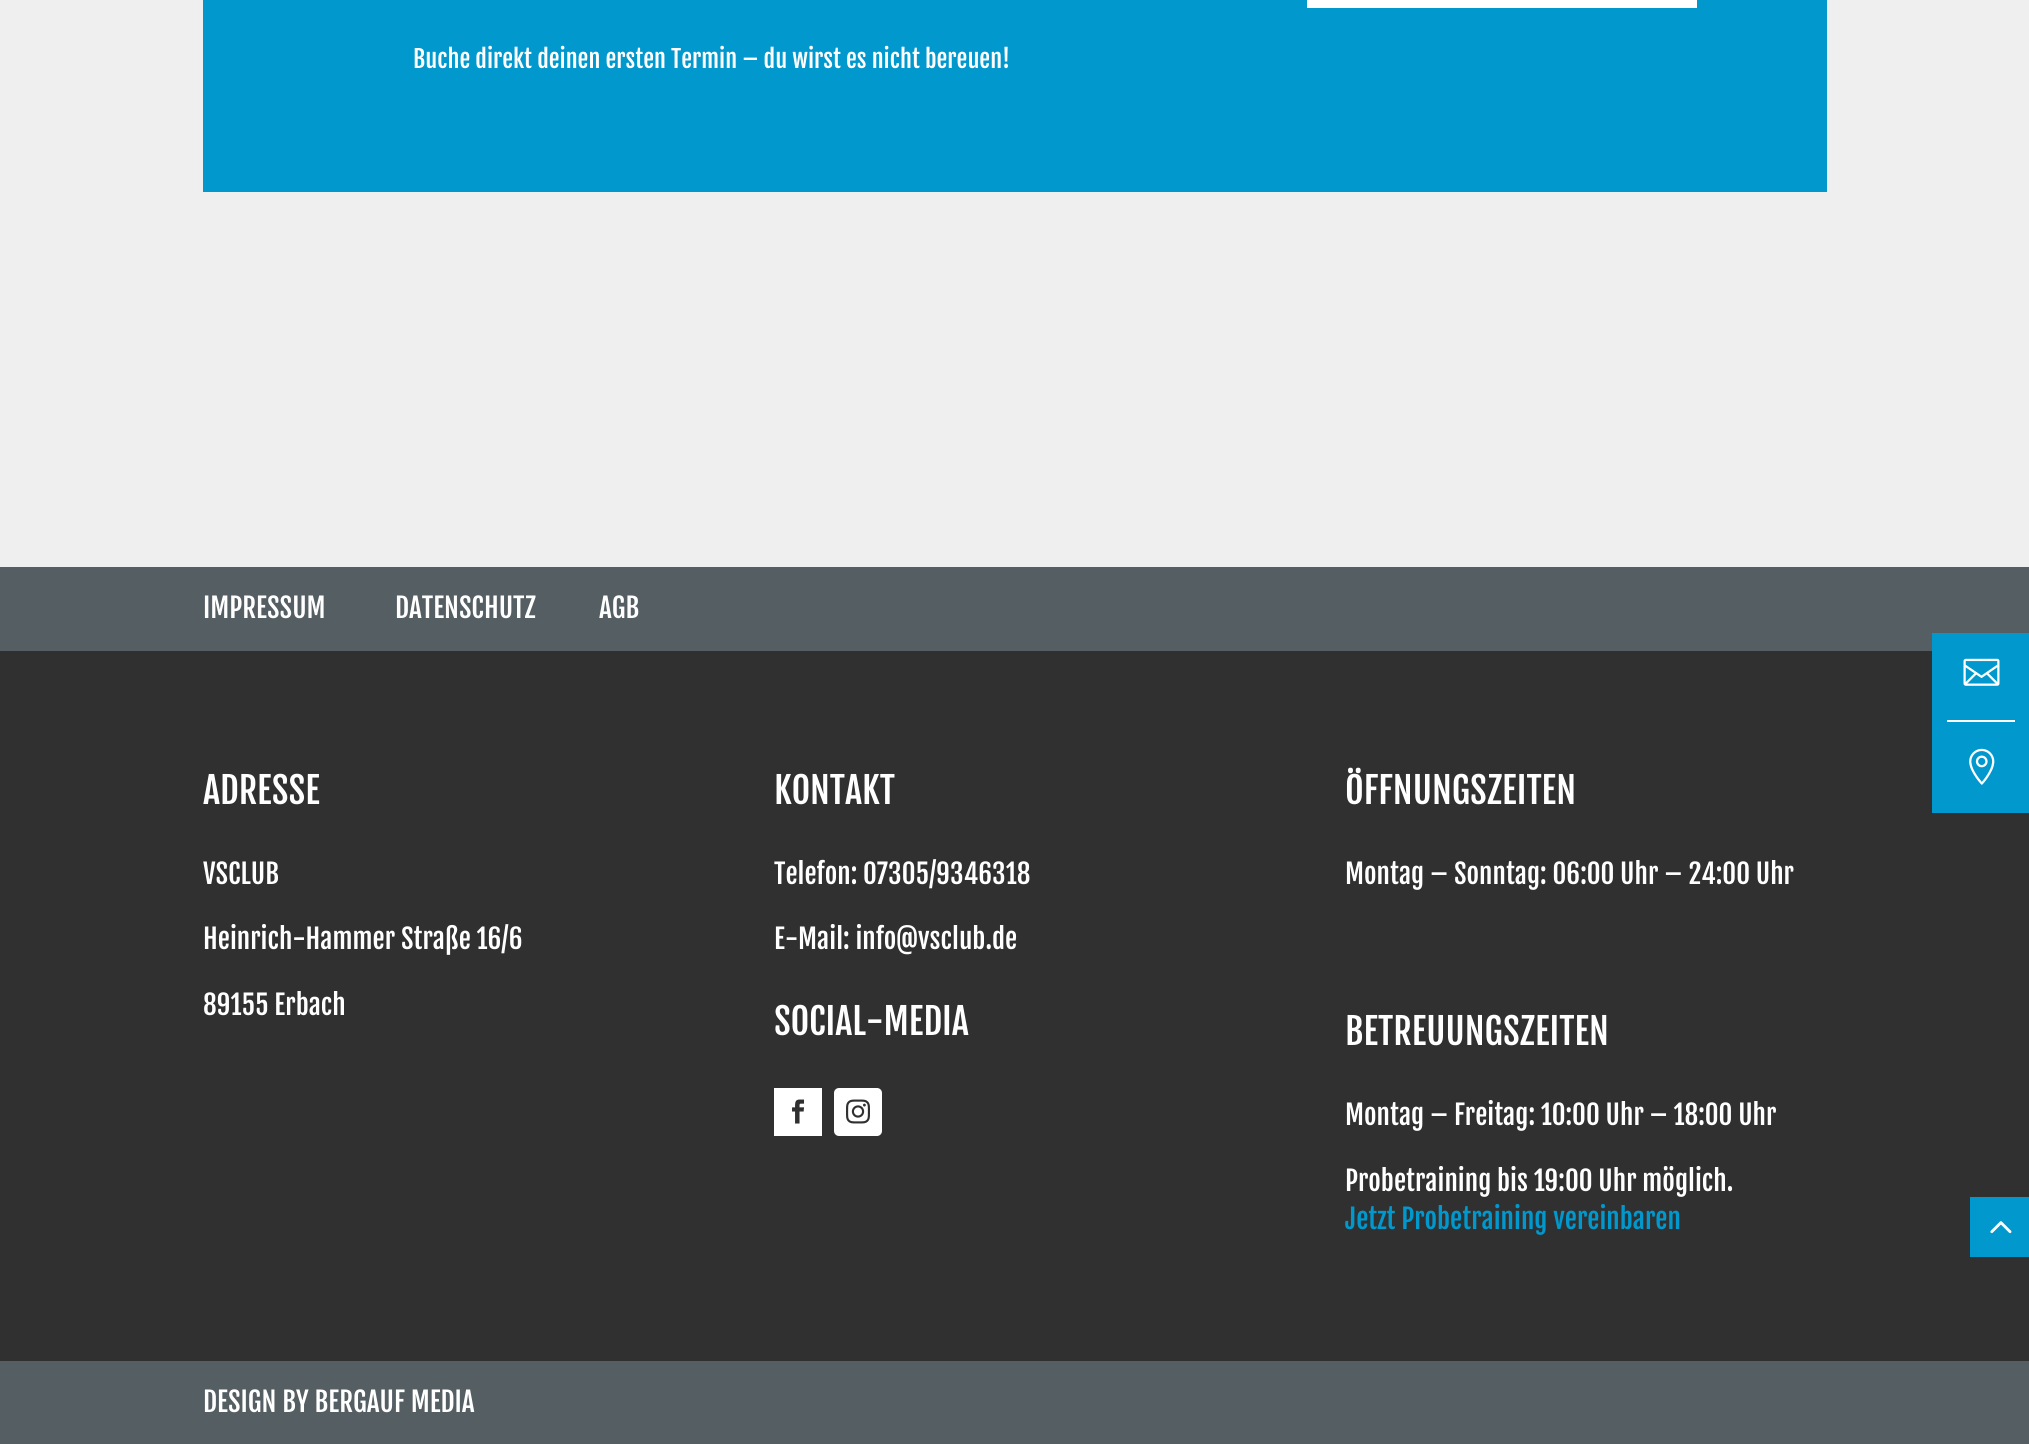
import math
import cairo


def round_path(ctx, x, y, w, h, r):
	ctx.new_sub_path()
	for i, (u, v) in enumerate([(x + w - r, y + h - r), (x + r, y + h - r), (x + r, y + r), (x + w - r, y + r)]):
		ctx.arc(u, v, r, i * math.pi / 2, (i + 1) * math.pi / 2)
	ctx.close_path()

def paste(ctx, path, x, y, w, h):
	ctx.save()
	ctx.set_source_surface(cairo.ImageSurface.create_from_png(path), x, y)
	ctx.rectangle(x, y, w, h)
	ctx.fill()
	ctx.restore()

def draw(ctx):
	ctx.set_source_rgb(0.937, 0.937, 0.937)
	ctx.paint()
	ctx.set_source_rgb(0, 0.596, 0.804)
	ctx.rectangle(203, 0, 1624, 192)
	ctx.fill()
	ctx.set_source_rgb(1, 1, 1)
	ctx.rectangle(1307, 0, 390, 8)
	ctx.fill()
	ctx.select_font_face('Fjalla One')
	ctx.set_font_size(24)
	ctx.move_to(413, 68)
	ctx.show_text('Buche direkt deinen ersten Termin – du wirst es nicht bereuen!')
	ctx.set_source_rgb(0.333, 0.369, 0.388)
	ctx.rectangle(0, 567, 2029, 84)
	ctx.fill()
	ctx.set_font_size(27)
	ctx.set_source_rgb(1, 1, 1)
	for x, y, s in [
		(203, 618, 'IMPRESSUM'),
		(395, 618, 'DATENSCHUTZ'),
		(599, 618, 'AGB'),
	]:
		ctx.move_to(x, y)
		ctx.show_text(s)
	ctx.set_source_rgb(0.188, 0.188, 0.188)
	ctx.rectangle(0, 651, 2029, 710)
	ctx.fill()
	ctx.set_source_rgb(0, 0.596, 0.804)
	ctx.rectangle(1932, 633, 97, 180)
	ctx.fill()
	paste(ctx, 'media/1.png', 1963, 658, 37, 28)
	ctx.set_source_rgb(1, 1, 1)
	ctx.rectangle(1947, 720, 68, 2)
	ctx.fill()
	paste(ctx, 'media/2.png', 1969, 748, 26, 37)
	ctx.set_font_size(36)
	ctx.move_to(203, 804)
	ctx.show_text('ADRESSE')
	ctx.set_font_size(27)
	for x, y, s in [
		(203, 884, 'VSCLUB'),
		(203, 949, 'Heinrich-Hammer Straße 16/6'),
		(203, 1015, '89155 Erbach'),
	]:
		ctx.move_to(x, y)
		ctx.show_text(s)
	ctx.set_font_size(36)
	ctx.move_to(774, 804)
	ctx.show_text('KONTAKT')
	ctx.set_font_size(27)
	ctx.move_to(774, 884)
	ctx.show_text('Telefon: 07305/9346318')
	ctx.move_to(774, 949)
	ctx.show_text('E-Mail: info@vsclub.de')
	ctx.set_font_size(36)
	ctx.move_to(774, 1035)
	ctx.show_text('SOCIAL-MEDIA')
	ctx.rectangle(774, 1088, 48, 48)
	ctx.fill()
	paste(ctx, 'media/3.png', 792, 1099, 13, 25)
	round_path(ctx, 834, 1088, 48, 48, 5)
	ctx.fill()
	paste(ctx, 'media/4.png', 846, 1099, 24, 25)
	ctx.move_to(1345, 804)
	ctx.show_text('ÖFFNUNGSZEITEN')
	ctx.set_font_size(27)
	ctx.move_to(1345, 884)
	ctx.show_text('Montag – Sonntag: 06:00 Uhr – 24:00 Uhr')
	ctx.set_font_size(36)
	ctx.move_to(1345, 1045)
	ctx.show_text('BETREUUNGSZEITEN')
	ctx.set_font_size(27)
	ctx.move_to(1345, 1125)
	ctx.show_text('Montag – Freitag: 10:00 Uhr – 18:00 Uhr')
	ctx.move_to(1345, 1191)
	ctx.show_text('Probetraining bis 19:00 Uhr möglich.')
	ctx.set_source_rgb(0, 0.596, 0.804)
	ctx.move_to(1345, 1229)
	ctx.show_text('Jetzt Probetraining vereinbaren')
	ctx.set_source_rgb(0.333, 0.369, 0.388)
	ctx.rectangle(0, 1361, 2029, 83)
	ctx.fill()
	ctx.set_source_rgb(1, 1, 1)
	ctx.move_to(203, 1412)
	ctx.show_text('DESIGN BY BERGAUF MEDIA')
	ctx.set_source_rgb(0, 0.596, 0.804)
	ctx.rectangle(1970, 1197, 59, 60)
	ctx.fill()
	paste(ctx, 'media/5.png', 1990, 1221, 22, 13)


surface = cairo.ImageSurface(cairo.FORMAT_RGB24, 2029, 1444)
ctx = cairo.Context(surface)
options = cairo.FontOptions()
options.set_hint_metrics(cairo.HINT_METRICS_OFF)
options.set_hint_style(cairo.HINT_STYLE_NONE)
ctx.set_font_options(options)
ctx.set_miter_limit(4)
draw(ctx)
surface.write_to_png('image.png')
